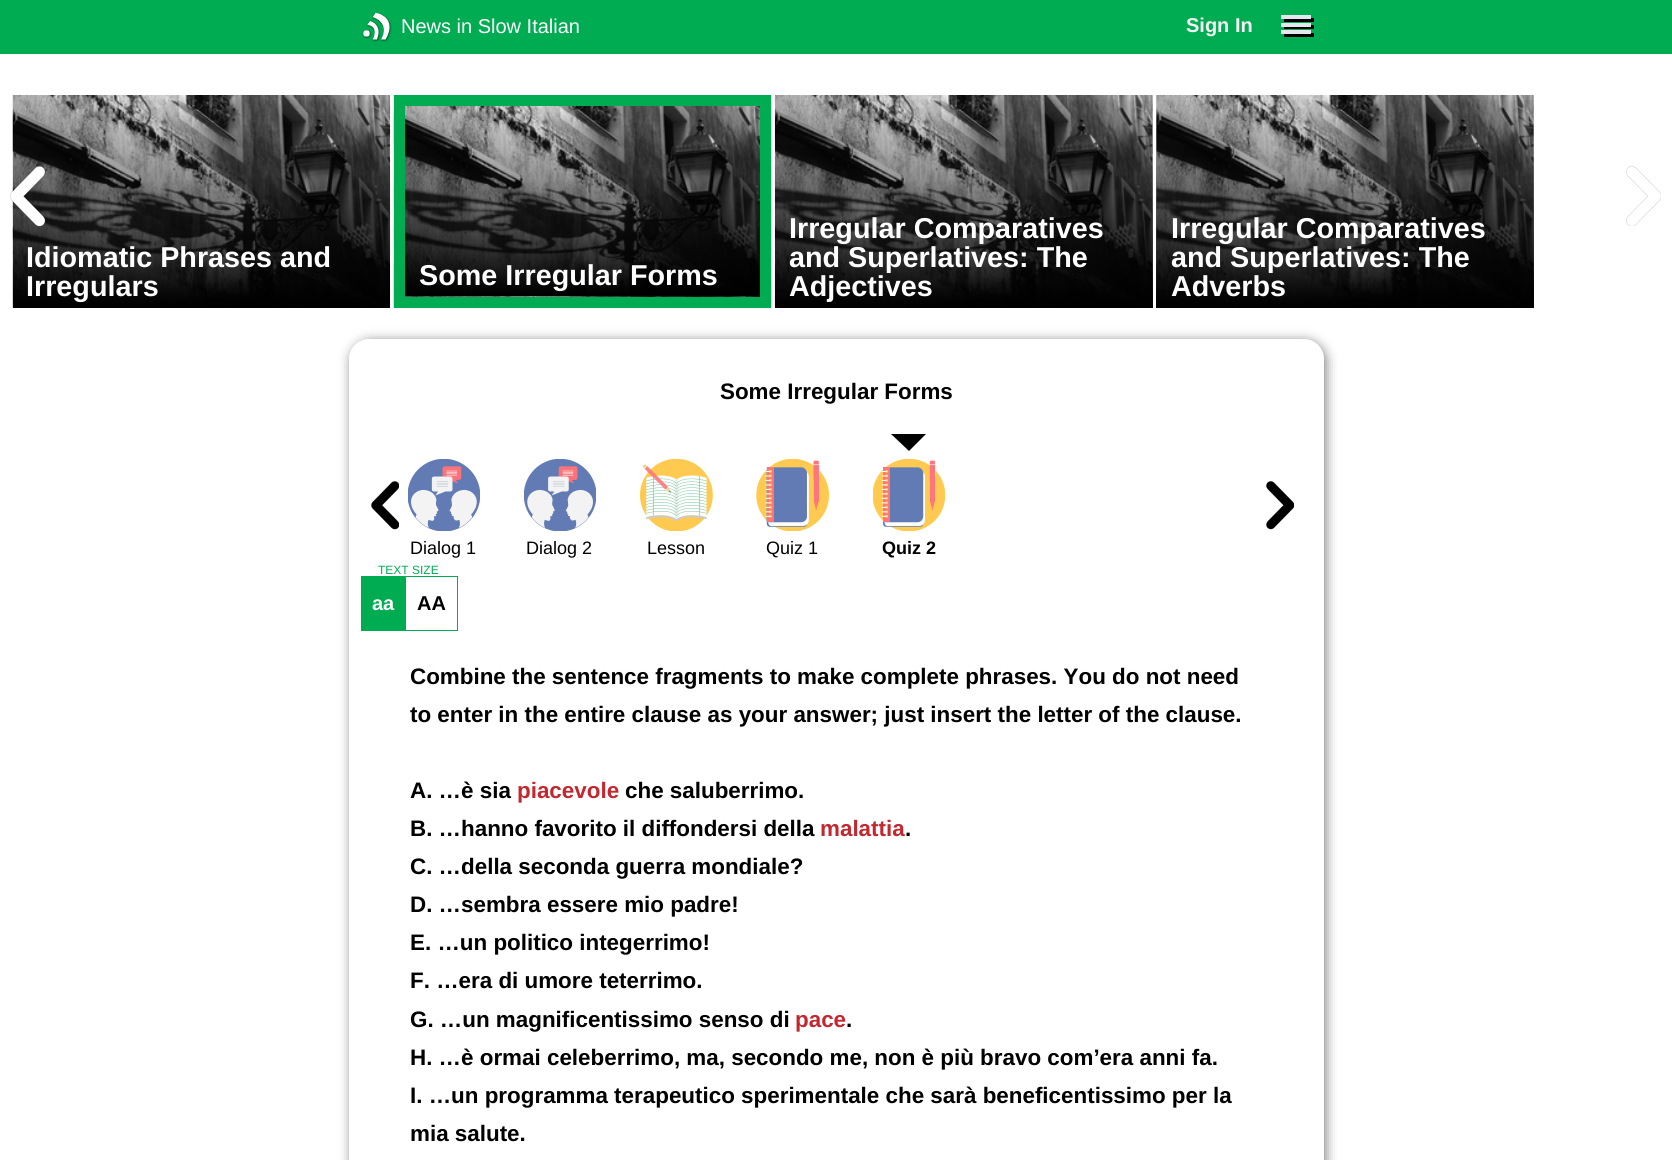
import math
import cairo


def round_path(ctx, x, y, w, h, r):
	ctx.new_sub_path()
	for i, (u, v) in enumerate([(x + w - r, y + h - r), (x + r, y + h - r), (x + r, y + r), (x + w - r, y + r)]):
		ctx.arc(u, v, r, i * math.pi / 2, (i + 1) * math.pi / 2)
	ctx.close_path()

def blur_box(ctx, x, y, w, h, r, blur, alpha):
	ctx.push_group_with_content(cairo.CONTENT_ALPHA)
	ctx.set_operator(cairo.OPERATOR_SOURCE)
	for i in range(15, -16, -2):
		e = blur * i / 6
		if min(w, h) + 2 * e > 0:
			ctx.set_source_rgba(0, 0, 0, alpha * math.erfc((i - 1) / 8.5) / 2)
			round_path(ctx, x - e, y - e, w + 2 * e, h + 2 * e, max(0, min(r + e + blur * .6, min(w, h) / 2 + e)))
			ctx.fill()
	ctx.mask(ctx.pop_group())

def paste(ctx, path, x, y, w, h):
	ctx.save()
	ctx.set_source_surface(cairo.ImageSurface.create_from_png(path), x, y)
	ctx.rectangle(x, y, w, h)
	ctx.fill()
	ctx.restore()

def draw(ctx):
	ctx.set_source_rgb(1, 1, 1)
	ctx.paint()
	ctx.set_source_rgb(0, 0.675, 0.322)
	ctx.rectangle(0, 0, 1672, 54)
	ctx.fill()
	paste(ctx, 'media/1.png', 362, 12, 30, 30)
	ctx.select_font_face('Liberation Sans')
	ctx.set_font_size(20)
	ctx.set_source_rgb(1, 1, 1)
	ctx.move_to(401, 33)
	ctx.show_text('News in Slow Italian')
	ctx.select_font_face('Liberation Sans', cairo.FONT_SLANT_NORMAL, cairo.FONT_WEIGHT_BOLD)
	ctx.set_source_rgb(0.957, 0.957, 0.957)
	ctx.move_to(1186, 32)
	ctx.show_text('Sign In')
	ctx.set_source_rgb(0, 0, 0)
	ctx.new_path()
	ctx.move_to(1284, 19)
	ctx.line_to(1284, 22)
	ctx.line_to(1314, 22)
	ctx.line_to(1314, 18)
	ctx.line_to(1311, 18)
	ctx.line_to(1311, 19)
	ctx.close_path()
	ctx.fill()
	ctx.set_source_rgb(0.894, 0.906, 0.929)
	ctx.rectangle(1281, 15, 30, 4)
	ctx.fill()
	ctx.set_source_rgb(0, 0, 0)
	ctx.new_path()
	ctx.move_to(1284, 26)
	ctx.line_to(1284, 29)
	ctx.line_to(1314, 29)
	ctx.line_to(1314, 25)
	ctx.line_to(1311, 25)
	ctx.line_to(1311, 26)
	ctx.close_path()
	ctx.fill()
	ctx.set_source_rgb(0.894, 0.906, 0.929)
	ctx.rectangle(1281, 23, 30, 4)
	ctx.fill()
	ctx.set_source_rgb(0, 0, 0)
	ctx.new_path()
	ctx.move_to(1284, 34)
	ctx.line_to(1284, 37)
	ctx.line_to(1314, 37)
	ctx.line_to(1314, 33)
	ctx.line_to(1311, 33)
	ctx.line_to(1311, 34)
	ctx.close_path()
	ctx.fill()
	ctx.set_source_rgb(0.894, 0.906, 0.929)
	ctx.rectangle(1281, 30, 30, 4)
	ctx.fill()
	paste(ctx, 'media/5.png', 12, 95, 378, 213)
	gradient = cairo.LinearGradient(201, 308, 201, 95)
	gradient.add_color_stop_rgba(0, 0, 0, 0, 1)
	gradient.add_color_stop_rgba(1, 0, 0, 0, 0)
	ctx.set_source(gradient)
	ctx.rectangle(13, 100, 377, 208)
	ctx.fill()
	paste(ctx, 'media/2.png', 10, 166, 35, 60)
	paste(ctx, 'media/3.png', 1626, 166, 35, 60)
	paste(ctx, 'media/4.png', 390, 95, 1, 213)
	ctx.set_font_size(28.75)
	ctx.set_source_rgb(1, 1, 1)
	ctx.move_to(26, 267)
	ctx.show_text('Idiomatic Phrases and')
	ctx.move_to(26, 296)
	ctx.show_text('Irregulars')
	paste(ctx, 'media/6.png', 393, 95, 379, 213)
	paste(ctx, 'media/7.png', 393, 95, 379, 212)
	ctx.rectangle(399.5, 100.5, 366, 202)
	ctx.set_source_rgb(0, 0.675, 0.322)
	ctx.set_line_width(11)
	ctx.stroke()
	ctx.set_source_rgb(1, 1, 1)
	ctx.move_to(419, 285)
	ctx.show_text('Some Irregular Forms')
	paste(ctx, 'media/8.png', 774, 95, 379, 213)
	paste(ctx, 'media/9.png', 775, 95, 378, 212)
	gradient = cairo.LinearGradient(964, 308, 964, 95)
	gradient.add_color_stop_rgba(0, 0, 0, 0, 1)
	gradient.add_color_stop_rgba(1, 0, 0, 0, 0)
	ctx.set_source(gradient)
	ctx.rectangle(775, 100, 378, 208)
	ctx.fill()
	ctx.set_source_rgb(1, 1, 1)
	for x, y, s in [
		(789, 238, 'Irregular Comparatives'),
		(789, 267, 'and Superlatives: The'),
		(789, 296, 'Adjectives'),
	]:
		ctx.move_to(x, y)
		ctx.show_text(s)
	ctx.set_source_rgb(0.98, 0.98, 0.98)
	ctx.rectangle(1156, 95, 378, 212)
	ctx.fill()
	paste(ctx, 'media/10.png', 1156, 95, 378, 212)
	paste(ctx, 'media/11.png', 1156, 95, 378, 212)
	gradient = cairo.LinearGradient(1345, 308, 1345, 95)
	gradient.add_color_stop_rgba(0, 0, 0, 0, 1)
	gradient.add_color_stop_rgba(1, 0, 0, 0, 0)
	ctx.set_source(gradient)
	ctx.rectangle(1156, 100, 378, 208)
	ctx.fill()
	ctx.set_source_rgb(1, 1, 1)
	for x, y, s in [
		(1171, 238, 'Irregular Comparatives'),
		(1171, 267, 'and Superlatives: The'),
		(1171, 296, 'Adverbs'),
	]:
		ctx.move_to(x, y)
		ctx.show_text(s)
	ctx.set_source_rgb(0.502, 0.502, 0.502)
	blur_box(ctx, 351, 341, 975, 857, 20, 6, 1)
	ctx.set_source_rgb(1, 1, 1)
	round_path(ctx, 349, 339, 975, 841, 20)
	ctx.fill()
	ctx.set_font_size(22.4)
	ctx.set_source_rgb(0, 0, 0)
	ctx.move_to(720, 399)
	ctx.show_text('Some Irregular Forms')
	paste(ctx, 'media/12.png', 371, 481, 28, 49)
	paste(ctx, 'media/13.png', 1266, 481, 28, 49)
	paste(ctx, 'media/14.png', 408, 459, 72, 72)
	ctx.select_font_face('Liberation Sans')
	ctx.set_font_size(18)
	ctx.move_to(410, 554)
	ctx.show_text('Dialog 1')
	paste(ctx, 'media/15.png', 524, 459, 72, 72)
	ctx.move_to(526, 554)
	ctx.show_text('Dialog 2')
	paste(ctx, 'media/16.png', 640, 459, 73, 72)
	ctx.move_to(647, 554)
	ctx.show_text('Lesson')
	paste(ctx, 'media/17.png', 756, 459, 73, 72)
	ctx.move_to(766, 554)
	ctx.show_text('Quiz 1')
	paste(ctx, 'media/18.png', 873, 459, 72, 72)
	ctx.new_path()
	ctx.move_to(891, 434)
	ctx.line_to(926, 434)
	ctx.line_to(909, 451)
	ctx.close_path()
	ctx.fill()
	ctx.select_font_face('Liberation Sans', cairo.FONT_SLANT_NORMAL, cairo.FONT_WEIGHT_BOLD)
	ctx.move_to(882, 554)
	ctx.show_text('Quiz 2')
	ctx.select_font_face('Liberation Sans')
	ctx.set_font_size(12)
	ctx.set_source_rgb(0, 0.675, 0.322)
	ctx.move_to(378, 574)
	ctx.show_text('TEXT SIZE')
	ctx.rectangle(361, 576, 44, 55)
	ctx.fill()
	ctx.select_font_face('Liberation Sans', cairo.FONT_SLANT_NORMAL, cairo.FONT_WEIGHT_BOLD)
	ctx.set_font_size(20)
	ctx.set_source_rgb(1, 1, 1)
	ctx.move_to(372, 610)
	ctx.show_text('aa')
	ctx.rectangle(405.5, 576.5, 52, 54)
	ctx.set_source_rgb(0, 0.675, 0.322)
	ctx.set_line_width(1)
	ctx.stroke()
	ctx.set_source_rgb(0, 0, 0)
	ctx.move_to(417, 610)
	ctx.show_text('AA')
	ctx.set_font_size(22.4)
	for x, y, s in [
		(410, 684, 'Combine the sentence fragments to make complete phrases. You do not need'),
		(410, 722, 'to enter in the entire clause as your answer; just insert the letter of the clause.'),
		(410, 798, 'A. …è sia'),
	]:
		ctx.move_to(x, y)
		ctx.show_text(s)
	ctx.set_source_rgb(0.765, 0.153, 0.184)
	ctx.move_to(517, 798)
	ctx.show_text('piacevole')
	ctx.set_source_rgb(0, 0, 0)
	ctx.move_to(625, 798)
	ctx.show_text('che saluberrimo.')
	ctx.move_to(410, 836)
	ctx.show_text('B. …hanno favorito il diffondersi della')
	ctx.set_source_rgb(0.765, 0.153, 0.184)
	ctx.move_to(820, 836)
	ctx.show_text('malattia')
	ctx.set_source_rgb(0, 0, 0)
	for x, y, s in [
		(905, 836, '.'),
		(410, 874, 'C. …della seconda guerra mondiale?'),
		(410, 912, 'D. …sembra essere mio padre!'),
		(410, 950, 'E. …un politico integerrimo!'),
		(410, 988, 'F. …era di umore teterrimo.'),
		(410, 1027, 'G. …un magnificentissimo senso di'),
	]:
		ctx.move_to(x, y)
		ctx.show_text(s)
	ctx.set_source_rgb(0.765, 0.153, 0.184)
	ctx.move_to(795, 1027)
	ctx.show_text('pace')
	ctx.set_source_rgb(0, 0, 0)
	for x, y, s in [
		(846, 1027, '.'),
		(410, 1065, 'H. …è ormai celeberrimo, ma, secondo me, non è più bravo com’era anni fa.'),
		(410, 1103, 'I. …un programma terapeutico sperimentale che sarà beneficentissimo per la'),
		(410, 1141, 'mia salute.'),
	]:
		ctx.move_to(x, y)
		ctx.show_text(s)


surface = cairo.ImageSurface(cairo.FORMAT_RGB24, 1672, 1160)
ctx = cairo.Context(surface)
options = cairo.FontOptions()
options.set_hint_metrics(cairo.HINT_METRICS_OFF)
options.set_hint_style(cairo.HINT_STYLE_NONE)
ctx.set_font_options(options)
ctx.set_miter_limit(4)
draw(ctx)
surface.write_to_png('image.png')
